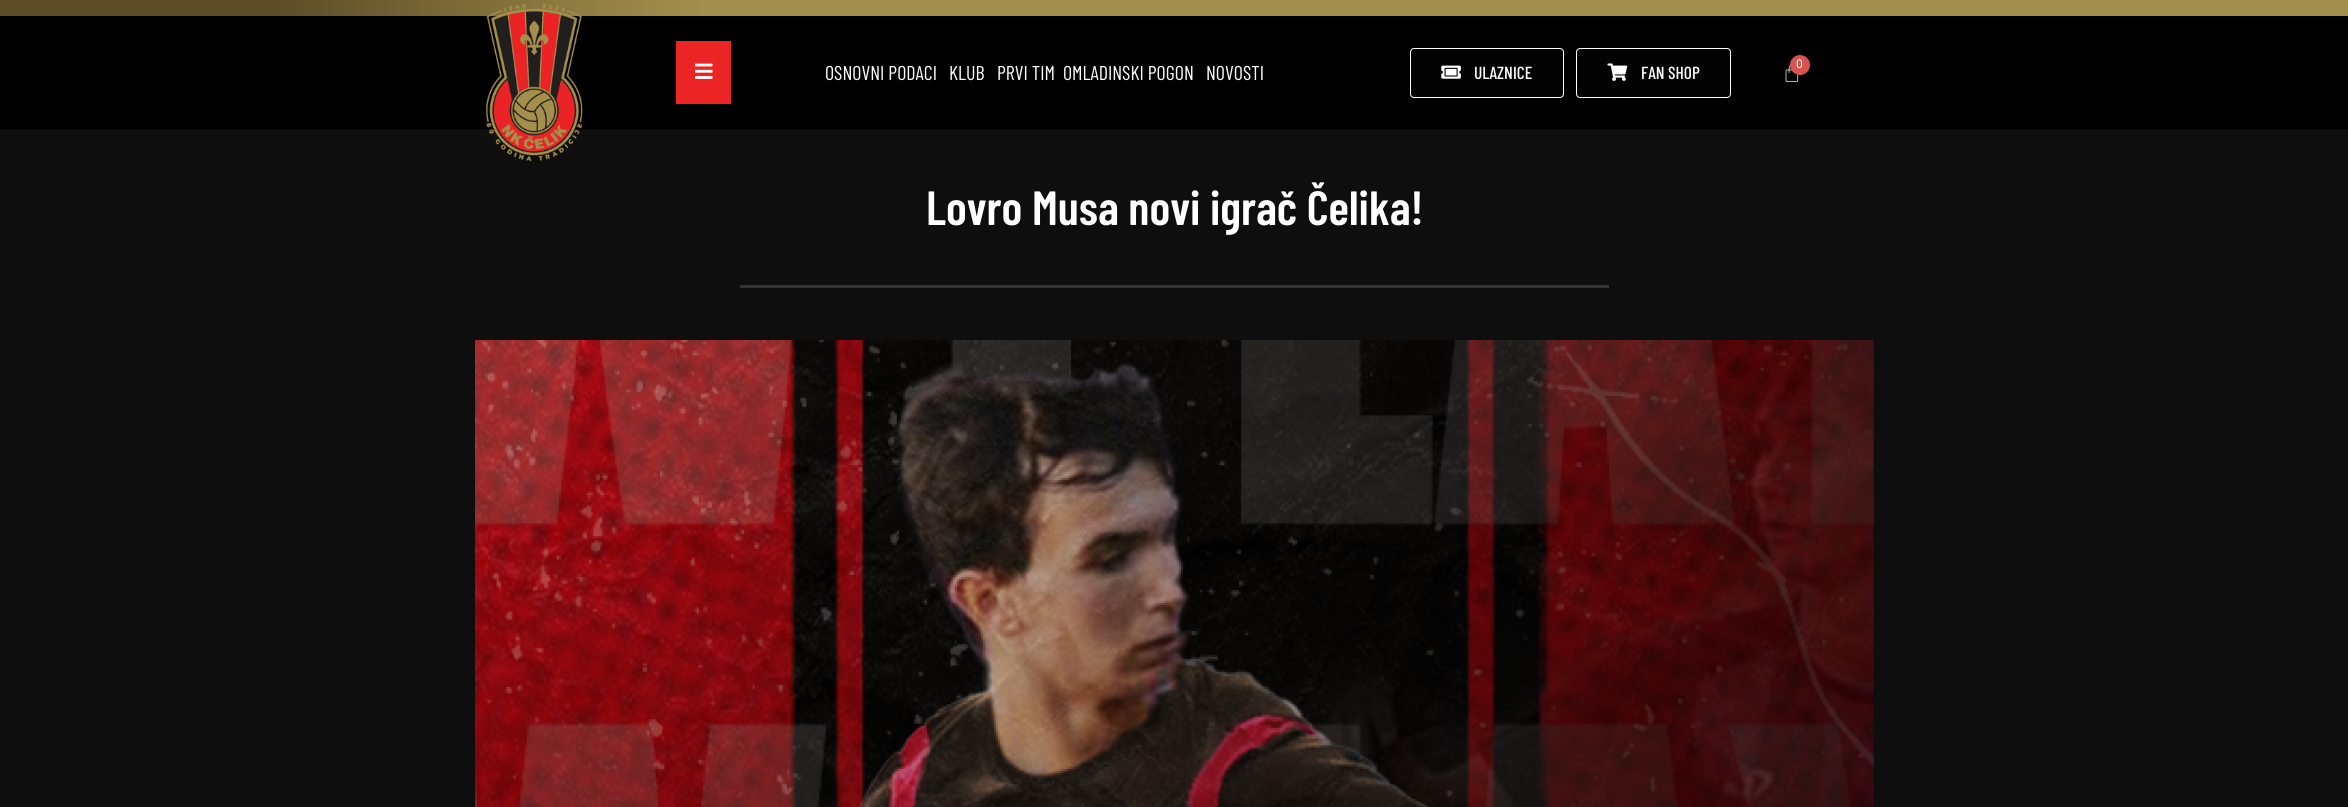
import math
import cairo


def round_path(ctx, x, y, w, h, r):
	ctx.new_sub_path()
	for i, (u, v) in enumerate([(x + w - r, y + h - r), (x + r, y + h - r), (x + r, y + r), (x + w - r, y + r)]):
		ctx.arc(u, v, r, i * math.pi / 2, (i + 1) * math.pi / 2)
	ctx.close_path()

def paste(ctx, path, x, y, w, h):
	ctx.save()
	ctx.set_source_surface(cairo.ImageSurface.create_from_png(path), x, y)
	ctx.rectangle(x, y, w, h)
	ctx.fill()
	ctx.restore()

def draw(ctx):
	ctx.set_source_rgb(0.055, 0.055, 0.055)
	ctx.paint()
	gradient = cairo.LinearGradient(0, 8, 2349, 8)
	gradient.add_color_stop_rgba(0.12, 0.369, 0.306, 0.157, 1)
	gradient.add_color_stop_rgba(0.3, 0.643, 0.565, 0.298, 1)
	ctx.set_source(gradient)
	ctx.rectangle(0, 0, 2348, 16)
	ctx.fill()
	ctx.set_source_rgb(0, 0, 0)
	ctx.rectangle(0, 16, 2348, 113)
	ctx.fill()
	paste(ctx, 'media/1.png', 486, 4, 97, 157)
	ctx.set_source_rgb(0.922, 0.141, 0.141)
	ctx.rectangle(676, 41, 55, 63)
	ctx.fill()
	paste(ctx, 'media/2.png', 695, 63, 18, 16)
	paste(ctx, 'media/3.png', 1785, 65, 14, 17)
	ctx.set_source_rgb(0.851, 0.325, 0.31)
	ctx.arc(1800, 65, 10, 0, 2 * math.pi)
	ctx.fill()
	ctx.select_font_face('Roboto')
	ctx.set_font_size(12)
	ctx.set_source_rgb(1, 1, 1)
	ctx.move_to(1796, 68)
	ctx.show_text('0')
	ctx.select_font_face('Barlow Condensed')
	ctx.set_font_size(20)
	for x, y, s in [
		(825, 80, 'OSNOVNI PODACI'),
		(949, 80, 'KLUB'),
		(997, 80, 'PRVI TIM'),
		(1063, 80, 'OMLADINSKI POGON'),
		(1206, 80, 'NOVOSTI'),
	]:
		ctx.move_to(x, y)
		ctx.show_text(s)
	ctx.set_source_rgb(0.012, 0.012, 0.012)
	round_path(ctx, 1410.5, 48.5, 153, 49, 3.5)
	ctx.fill_preserve()
	ctx.set_source_rgb(1, 1, 1)
	ctx.set_line_width(1)
	ctx.stroke()
	paste(ctx, 'media/4.png', 1441, 65, 20, 14)
	ctx.select_font_face('Barlow Condensed Medium')
	ctx.set_font_size(17.5)
	ctx.move_to(1474, 79)
	ctx.show_text('ULAZNICE')
	ctx.set_source_rgb(0.012, 0.012, 0.012)
	round_path(ctx, 1576.5, 48.5, 154, 49, 3.5)
	ctx.fill_preserve()
	ctx.set_source_rgb(1, 1, 1)
	ctx.stroke()
	paste(ctx, 'media/5.png', 1607, 63, 21, 18)
	ctx.move_to(1641, 79)
	ctx.show_text('FAN SHOP')
	ctx.select_font_face('Barlow Condensed SemiBold')
	ctx.set_font_size(48)
	ctx.move_to(926, 225)
	ctx.show_text('Lovro Musa novi igrač Čelika!')
	ctx.set_source_rgb(0.2, 0.2, 0.2)
	ctx.rectangle(740, 285, 869, 3)
	ctx.fill()
	paste(ctx, 'media/6.png', 475, 340, 1399, 467)


surface = cairo.ImageSurface(cairo.FORMAT_RGB24, 2348, 807)
ctx = cairo.Context(surface)
options = cairo.FontOptions()
options.set_hint_metrics(cairo.HINT_METRICS_OFF)
options.set_hint_style(cairo.HINT_STYLE_NONE)
ctx.set_font_options(options)
ctx.set_miter_limit(4)
draw(ctx)
surface.write_to_png('image.png')
